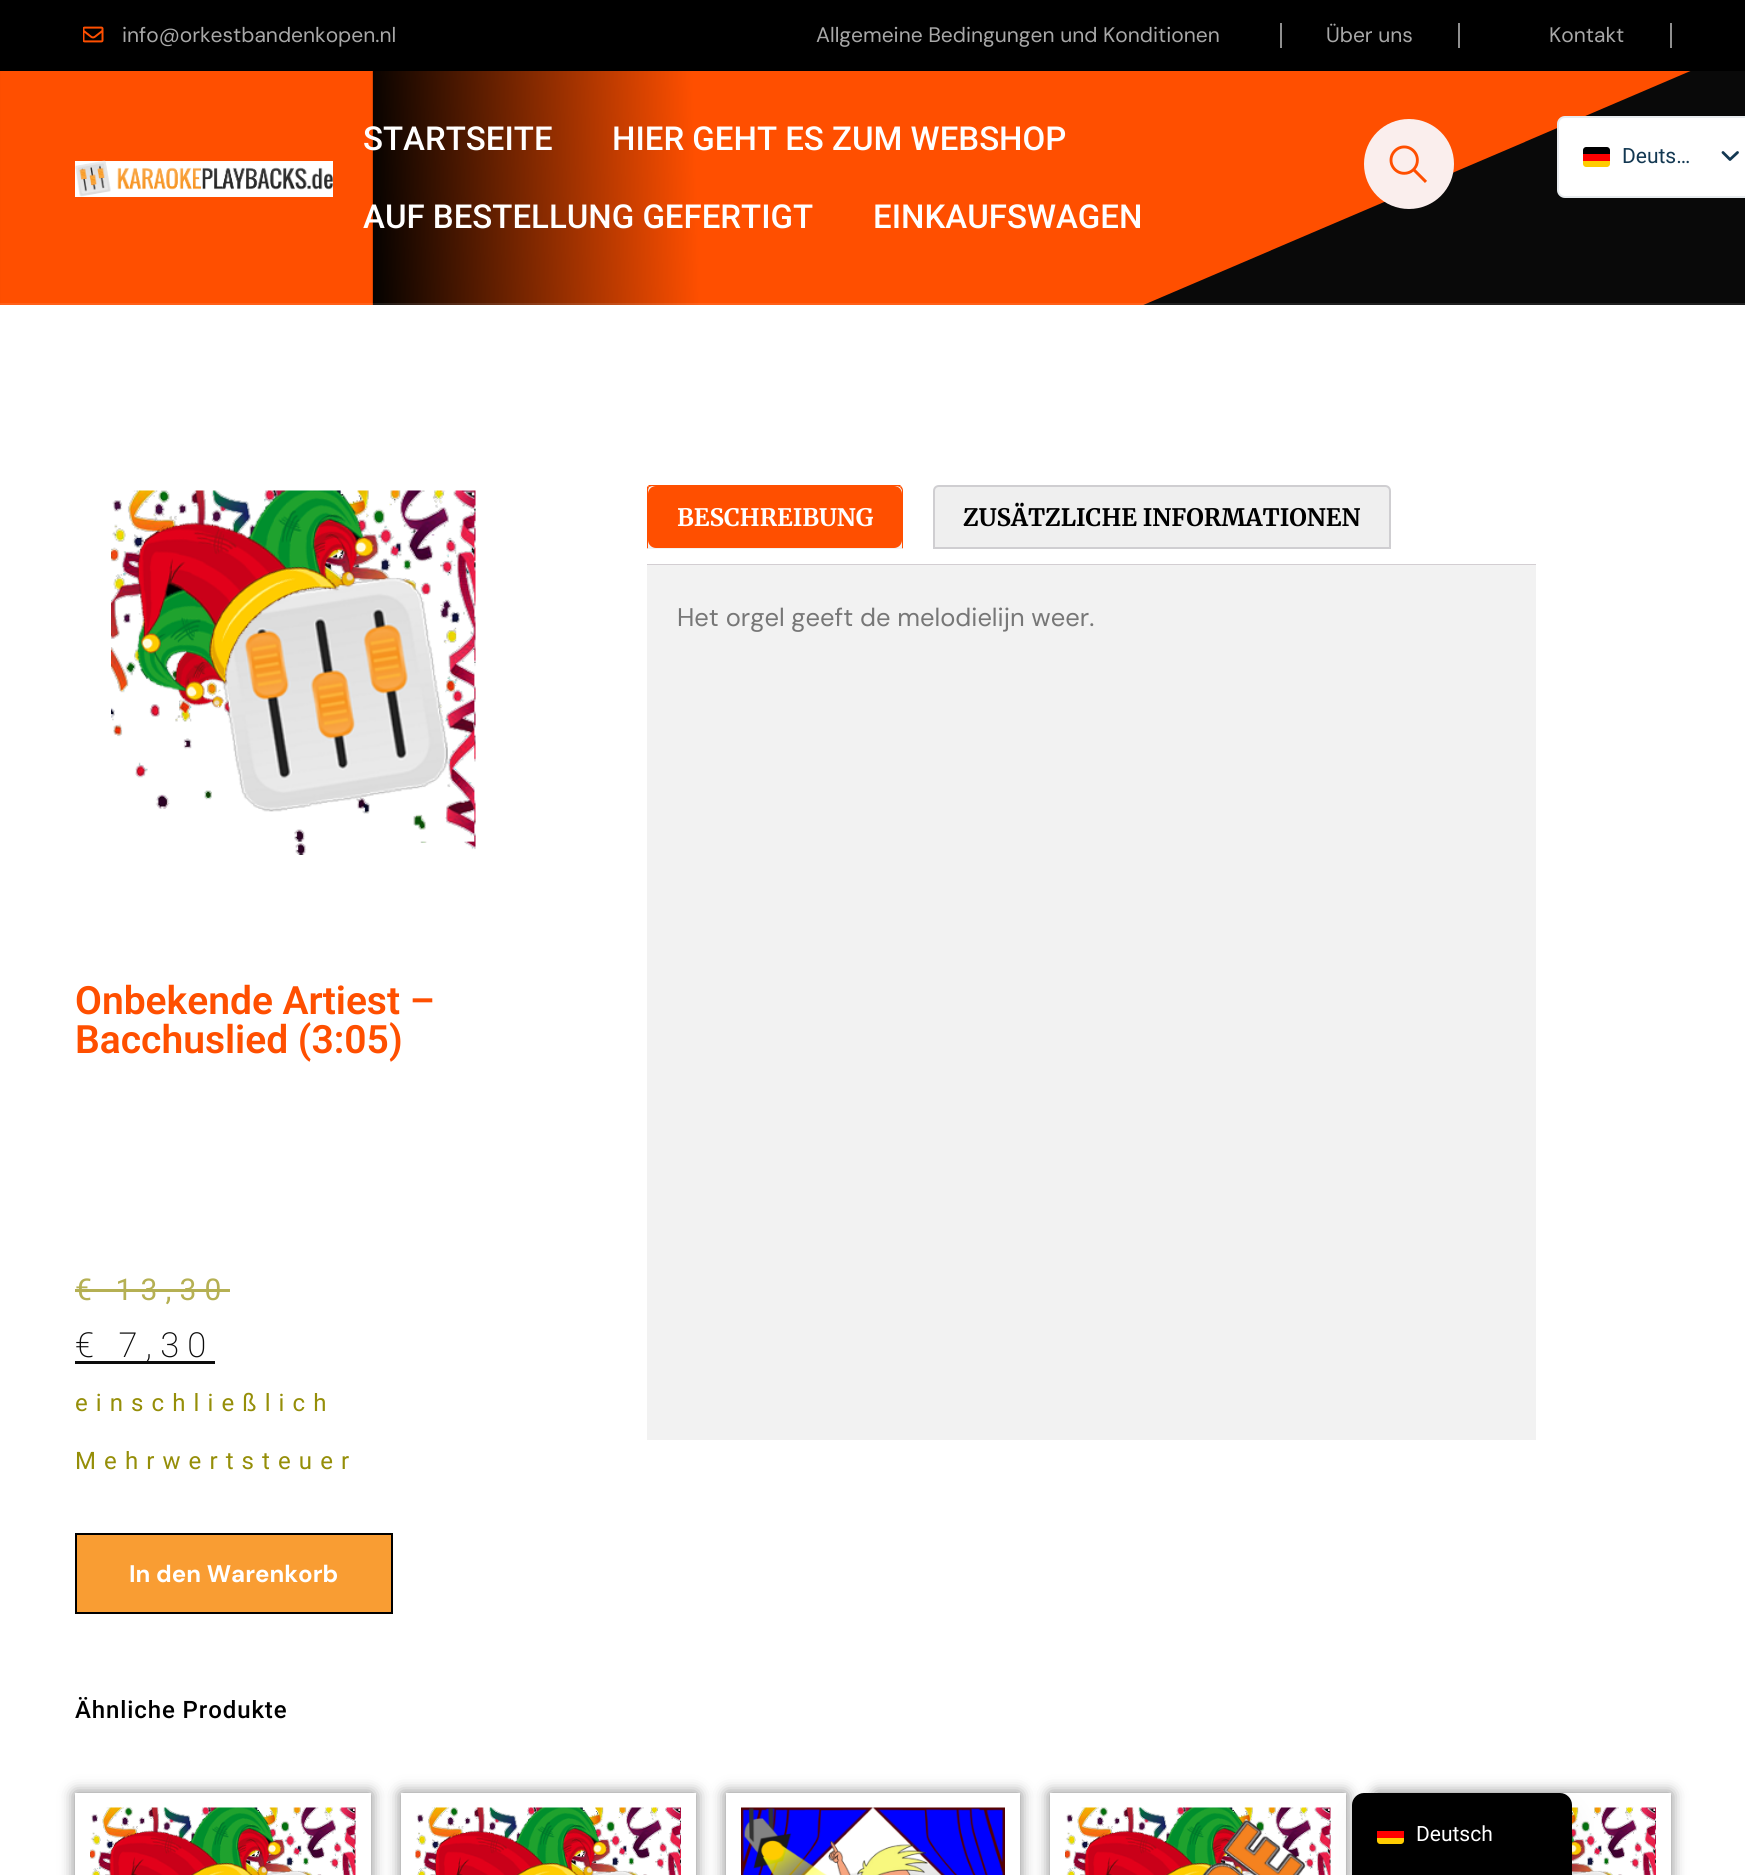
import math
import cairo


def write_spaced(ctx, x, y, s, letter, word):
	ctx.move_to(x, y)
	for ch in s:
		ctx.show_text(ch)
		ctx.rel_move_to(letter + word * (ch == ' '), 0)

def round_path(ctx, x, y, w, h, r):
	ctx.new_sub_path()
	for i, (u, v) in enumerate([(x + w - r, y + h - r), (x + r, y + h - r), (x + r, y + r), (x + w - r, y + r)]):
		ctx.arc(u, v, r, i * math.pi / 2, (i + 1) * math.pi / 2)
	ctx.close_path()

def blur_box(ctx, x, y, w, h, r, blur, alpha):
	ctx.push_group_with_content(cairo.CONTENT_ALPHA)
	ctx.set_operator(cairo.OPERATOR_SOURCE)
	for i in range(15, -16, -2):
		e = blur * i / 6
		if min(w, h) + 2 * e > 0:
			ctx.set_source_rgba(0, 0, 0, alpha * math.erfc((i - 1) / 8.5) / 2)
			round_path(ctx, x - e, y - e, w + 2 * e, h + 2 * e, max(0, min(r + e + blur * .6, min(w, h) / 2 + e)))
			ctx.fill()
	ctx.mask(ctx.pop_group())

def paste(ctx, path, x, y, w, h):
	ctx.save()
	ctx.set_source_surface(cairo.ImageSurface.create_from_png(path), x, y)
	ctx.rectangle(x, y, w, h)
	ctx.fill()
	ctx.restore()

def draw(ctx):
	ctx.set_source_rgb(1, 1, 1)
	ctx.paint()
	ctx.set_source_rgb(0, 0, 0)
	ctx.rectangle(0, 0, 1745, 71)
	ctx.fill()
	paste(ctx, 'media/1.png', 83, 26, 21, 17)
	ctx.select_font_face('DM Sans')
	ctx.set_font_size(21)
	ctx.set_source_rgb(0.659, 0.659, 0.659)
	ctx.move_to(122, 42)
	ctx.show_text('info@orkestbandenkopen.nl')
	ctx.move_to(816, 42)
	ctx.show_text('Allgemeine Bedingungen und Konditionen')
	ctx.set_source_rgb(0.561, 0.561, 0.561)
	ctx.rectangle(1458, 23, 2, 25)
	ctx.fill()
	ctx.rectangle(1280, 23, 2, 25)
	ctx.fill()
	ctx.set_source_rgb(0.659, 0.659, 0.659)
	ctx.move_to(1326, 42)
	ctx.show_text('Über uns')
	ctx.set_source_rgb(0.561, 0.561, 0.561)
	ctx.rectangle(1670, 23, 2, 25)
	ctx.fill()
	ctx.set_source_rgb(0.659, 0.659, 0.659)
	ctx.move_to(1549, 42)
	ctx.show_text('Kontakt')
	ctx.set_source_rgb(0.039, 0.039, 0.039)
	ctx.rectangle(0, 71, 1745, 234)
	ctx.fill()
	paste(ctx, 'media/2.png', 0, 71, 1691, 234)
	ctx.set_source_rgba(1, 1, 1, 0.1)
	ctx.rectangle(0, 303, 1745, 2)
	ctx.fill()
	ctx.select_font_face('Roboto Medium')
	ctx.set_font_size(33)
	ctx.set_source_rgb(1, 1, 1)
	for x, y, s in [
		(363, 150, 'STARTSEITE'),
		(612, 150, 'HIER GEHT ES ZUM WEBSHOP'),
		(363, 228, 'AUF BESTELLUNG GEFERTIGT'),
		(873, 228, 'EINKAUFSWAGEN'),
	]:
		ctx.move_to(x, y)
		ctx.show_text(s)
	ctx.set_source_rgb(0.98, 0.933, 0.929)
	ctx.new_path()
	ctx.move_to(1409, 119)
	ctx.curve_to(1384, 119, 1364, 139, 1364, 164)
	ctx.curve_to(1364, 189, 1384, 209, 1409, 209)
	ctx.curve_to(1434, 209, 1454, 189, 1454, 164)
	ctx.curve_to(1454, 139, 1434, 119, 1409, 119)
	ctx.close_path()
	ctx.fill()
	paste(ctx, 'media/3.png', 1389, 145, 38, 38)
	ctx.set_source_rgb(1, 1, 1)
	round_path(ctx, 1557, 116, 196, 82, 8)
	ctx.fill()
	round_path(ctx, 1558, 117, 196, 80, 7)
	ctx.set_source_rgba(0.078, 0.22, 0.322, 0.1)
	ctx.stroke()
	ctx.set_source_rgb(1, 0.8, 0)
	ctx.new_path()
	ctx.move_to(1583, 161)
	ctx.line_to(1610, 161)
	ctx.line_to(1610, 164)
	ctx.curve_to(1610, 165.5, 1608.5, 167, 1607, 167)
	ctx.line_to(1586, 167)
	ctx.curve_to(1584.5, 167, 1583, 165.5, 1583, 164)
	ctx.close_path()
	ctx.fill()
	ctx.set_source_rgb(0, 0, 0.004)
	ctx.new_path()
	ctx.move_to(1586, 147)
	ctx.line_to(1607, 147)
	ctx.curve_to(1608.5, 147, 1610, 148.5, 1610, 150)
	ctx.line_to(1610, 154)
	ctx.line_to(1583, 154)
	ctx.line_to(1583, 150)
	ctx.curve_to(1583, 148.5, 1584.5, 147, 1586, 147)
	ctx.close_path()
	ctx.fill()
	ctx.set_source_rgb(1, 0, 0)
	ctx.rectangle(1583, 154, 27, 7)
	ctx.fill()
	ctx.select_font_face('Roboto')
	ctx.set_font_size(21)
	ctx.set_source_rgb(0.078, 0.22, 0.322)
	ctx.move_to(1622, 163)
	ctx.show_text('Deuts…')
	ctx.new_path()
	ctx.move_to(1723, 152.5)
	ctx.line_to(1730, 159.5)
	ctx.line_to(1737.5, 152.5)
	ctx.set_line_width(2.8)
	ctx.set_line_cap(cairo.LINE_CAP_ROUND)
	ctx.set_line_join(cairo.LINE_JOIN_ROUND)
	ctx.stroke()
	ctx.set_source_rgb(1, 1, 1)
	ctx.rectangle(75, 161, 258, 36)
	ctx.fill()
	paste(ctx, 'media/4.png', 75, 160, 258, 37)
	ctx.set_source_rgb(0.949, 0.949, 0.949)
	ctx.new_path()
	ctx.move_to(653, 485)
	ctx.line_to(897, 485)
	ctx.curve_to(900.5, 485, 903, 487.5, 903, 491)
	ctx.line_to(903, 549)
	ctx.line_to(647, 549)
	ctx.line_to(647, 491)
	ctx.curve_to(647, 487.5, 649.5, 485, 653, 485)
	ctx.close_path()
	ctx.fill()
	ctx.save()
	ctx.rectangle(647, 485, 889, 79)
	ctx.clip()
	ctx.set_source_rgb(1, 0.31, 0)
	ctx.new_path()
	ctx.move_to(652, 486)
	ctx.line_to(649, 487)
	ctx.line_to(648, 486)
	ctx.line_to(650, 484)
	ctx.line_to(899, 484)
	ctx.line_to(901, 486)
	ctx.line_to(900, 487)
	ctx.line_to(897, 486)
	ctx.close_path()
	ctx.fill()
	ctx.restore()
	ctx.set_source_rgb(1, 0.31, 0)
	ctx.new_path()
	ctx.move_to(903, 549)
	ctx.line_to(903, 490)
	ctx.curve_to(903, 489, 902, 487, 901, 486)
	ctx.line_to(900, 487)
	ctx.line_to(902, 490)
	ctx.line_to(902, 548)
	ctx.close_path()
	ctx.fill()
	ctx.set_source_rgb(0.949, 0.949, 0.949)
	ctx.new_path()
	ctx.move_to(903, 549)
	ctx.line_to(902, 548)
	ctx.line_to(648, 548)
	ctx.line_to(646, 549)
	ctx.close_path()
	ctx.fill()
	ctx.save()
	ctx.rectangle(647, 485, 889, 79)
	ctx.clip()
	ctx.set_source_rgb(1, 0.31, 0)
	ctx.new_path()
	ctx.move_to(646, 549)
	ctx.line_to(646, 488)
	ctx.line_to(648, 486)
	ctx.line_to(649, 487)
	ctx.line_to(648, 490)
	ctx.line_to(648, 548)
	ctx.close_path()
	ctx.fill()
	ctx.restore()
	ctx.set_source_rgb(1, 0.31, 0)
	round_path(ctx, 648, 486, 254, 62, 8)
	ctx.fill()
	ctx.select_font_face('Merriweather', cairo.FONT_SLANT_NORMAL, cairo.FONT_WEIGHT_BOLD)
	ctx.set_font_size(24)
	ctx.set_source_rgb(1, 1, 1)
	ctx.move_to(677, 526)
	ctx.show_text('BESCHREIBUNG')
	ctx.set_source_rgb(0.937, 0.937, 0.937)
	ctx.new_path()
	ctx.move_to(939, 485)
	ctx.line_to(1385, 485)
	ctx.curve_to(1388.5, 485, 1391, 487.5, 1391, 491)
	ctx.line_to(1391, 549)
	ctx.line_to(933, 549)
	ctx.line_to(933, 491)
	ctx.curve_to(933, 487.5, 935.5, 485, 939, 485)
	ctx.close_path()
	ctx.fill()
	ctx.new_path()
	ctx.move_to(939, 486)
	ctx.line_to(1385, 486)
	ctx.curve_to(1388, 486, 1390, 488, 1390, 491)
	ctx.line_to(1390, 548)
	ctx.line_to(934, 548)
	ctx.line_to(934, 491)
	ctx.curve_to(934, 488, 936, 486, 939, 486)
	ctx.close_path()
	ctx.set_source_rgba(0.114, 0.09, 0.161, 0.15)
	ctx.set_line_width(2)
	ctx.set_line_cap(cairo.LINE_CAP_BUTT)
	ctx.set_line_join(cairo.LINE_JOIN_MITER)
	ctx.stroke()
	ctx.set_source_rgb(0, 0, 0)
	ctx.move_to(963, 526)
	ctx.show_text('ZUSÄTZLICHE INFORMATIONEN')
	ctx.set_source_rgb(0.949, 0.949, 0.949)
	ctx.rectangle(647, 565, 889, 875)
	ctx.fill()
	ctx.set_source_rgb(0.827, 0.808, 0.824)
	ctx.rectangle(647, 564, 889, 1)
	ctx.fill()
	ctx.select_font_face('DM Sans')
	ctx.set_font_size(25.5)
	ctx.set_source_rgb(0.467, 0.467, 0.467)
	ctx.move_to(677, 626)
	ctx.show_text('Het orgel geeft de melodielijn weer.')
	paste(ctx, 'media/5.png', 111, 490, 365, 365)
	ctx.select_font_face('Roboto SemiBold')
	ctx.set_font_size(39)
	ctx.set_source_rgb(1, 0.31, 0)
	ctx.move_to(75, 1014)
	ctx.show_text('Onbekende Artiest –')
	ctx.move_to(75, 1053)
	ctx.show_text('Bacchuslied (3:05)')
	ctx.select_font_face('Roboto')
	ctx.set_font_size(30)
	ctx.set_source_rgb(0.71, 0.69, 0.325)
	write_spaced(ctx, 75, 1300, '€ 13,30', 8.1, 0)
	ctx.rectangle(75, 1289, 155, 3)
	ctx.fill()
	ctx.set_source_rgb(0.047, 0.047, 0.047)
	ctx.rectangle(75, 1361, 140, 3)
	ctx.fill()
	ctx.select_font_face('Roboto ExtraLight')
	ctx.set_font_size(34.5)
	write_spaced(ctx, 75, 1357, '€ 7,30', 8.1, 0)
	ctx.select_font_face('Roboto')
	ctx.set_font_size(24)
	ctx.set_source_rgb(0.584, 0.557, 0.035)
	write_spaced(ctx, 75, 1411, 'einschließlich', 8.1, 0)
	write_spaced(ctx, 75, 1469, 'Mehrwertsteuer', 8.1, 0)
	ctx.set_source_rgb(0.973, 0.616, 0.2)
	ctx.rectangle(76, 1534, 316, 79)
	ctx.fill_preserve()
	ctx.set_source_rgb(0, 0, 0)
	ctx.stroke()
	ctx.select_font_face('DM Sans', cairo.FONT_SLANT_NORMAL, cairo.FONT_WEIGHT_BOLD)
	ctx.set_source_rgb(1, 1, 1)
	ctx.move_to(129, 1582)
	ctx.show_text('In den Warenkorb')
	ctx.select_font_face('Roboto Medium')
	ctx.set_source_rgb(0, 0, 0)
	write_spaced(ctx, 75, 1718, 'Ähnliche Produkte', 0.9, 0)
	ctx.save()
	ctx.set_fill_rule(cairo.FILL_RULE_EVEN_ODD)
	ctx.new_path()
	ctx.move_to(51, 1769)
	ctx.line_to(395, 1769)
	ctx.line_to(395, 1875)
	ctx.line_to(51, 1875)
	ctx.close_path()
	ctx.move_to(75, 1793)
	ctx.line_to(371, 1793)
	ctx.line_to(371, 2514)
	ctx.line_to(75, 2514)
	ctx.close_path()
	ctx.clip()
	ctx.set_source_rgb(0, 0, 0)
	blur_box(ctx, 75, 1793, 296, 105, 0, 7.5, 0.5)
	ctx.restore()
	paste(ctx, 'media/6.png', 90, 1807, 266, 68)
	ctx.save()
	ctx.set_fill_rule(cairo.FILL_RULE_EVEN_ODD)
	ctx.new_path()
	ctx.move_to(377, 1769)
	ctx.line_to(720, 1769)
	ctx.line_to(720, 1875)
	ctx.line_to(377, 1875)
	ctx.close_path()
	ctx.move_to(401, 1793)
	ctx.line_to(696, 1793)
	ctx.line_to(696, 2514)
	ctx.line_to(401, 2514)
	ctx.close_path()
	ctx.clip()
	ctx.set_source_rgb(0, 0, 0)
	blur_box(ctx, 401, 1793, 295, 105, 0, 7.5, 0.5)
	ctx.restore()
	paste(ctx, 'media/7.png', 415, 1807, 266, 68)
	ctx.save()
	ctx.set_fill_rule(cairo.FILL_RULE_EVEN_ODD)
	ctx.new_path()
	ctx.move_to(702, 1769)
	ctx.line_to(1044, 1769)
	ctx.line_to(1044, 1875)
	ctx.line_to(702, 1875)
	ctx.close_path()
	ctx.move_to(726, 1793)
	ctx.line_to(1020, 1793)
	ctx.line_to(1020, 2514)
	ctx.line_to(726, 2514)
	ctx.close_path()
	ctx.clip()
	ctx.set_source_rgb(0, 0, 0)
	blur_box(ctx, 726, 1793, 294, 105, 0, 7.5, 0.5)
	ctx.restore()
	paste(ctx, 'media/8.png', 741, 1807, 264, 68)
	ctx.save()
	ctx.set_fill_rule(cairo.FILL_RULE_EVEN_ODD)
	ctx.new_path()
	ctx.move_to(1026, 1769)
	ctx.line_to(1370, 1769)
	ctx.line_to(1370, 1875)
	ctx.line_to(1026, 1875)
	ctx.close_path()
	ctx.move_to(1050, 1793)
	ctx.line_to(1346, 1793)
	ctx.line_to(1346, 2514)
	ctx.line_to(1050, 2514)
	ctx.close_path()
	ctx.clip()
	ctx.set_source_rgb(0, 0, 0)
	blur_box(ctx, 1050, 1793, 296, 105, 0, 7.5, 0.5)
	ctx.restore()
	paste(ctx, 'media/9.png', 1065, 1807, 266, 68)
	ctx.save()
	ctx.set_fill_rule(cairo.FILL_RULE_EVEN_ODD)
	ctx.new_path()
	ctx.move_to(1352, 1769)
	ctx.line_to(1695, 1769)
	ctx.line_to(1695, 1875)
	ctx.line_to(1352, 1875)
	ctx.close_path()
	ctx.move_to(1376, 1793)
	ctx.line_to(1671, 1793)
	ctx.line_to(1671, 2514)
	ctx.line_to(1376, 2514)
	ctx.close_path()
	ctx.clip()
	ctx.set_source_rgb(0, 0, 0)
	blur_box(ctx, 1376, 1793, 295, 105, 0, 7.5, 0.5)
	ctx.restore()
	paste(ctx, 'media/10.png', 1572, 1807, 84, 68)
	ctx.set_source_rgb(0, 0, 0)
	blur_box(ctx, 1352, 1808, 220, 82, 12, 15, 0.05)
	ctx.set_source_rgb(0, 0, 0)
	ctx.new_path()
	ctx.move_to(1364, 1793)
	ctx.line_to(1560, 1793)
	ctx.curve_to(1566.5, 1793, 1572, 1798.5, 1572, 1805)
	ctx.line_to(1572, 1875)
	ctx.line_to(1352, 1875)
	ctx.line_to(1352, 1805)
	ctx.curve_to(1352, 1798.5, 1357.5, 1793, 1364, 1793)
	ctx.close_path()
	ctx.fill()
	ctx.set_source_rgb(1, 0.8, 0)
	ctx.new_path()
	ctx.move_to(1377, 1838)
	ctx.line_to(1404, 1838)
	ctx.line_to(1404, 1841)
	ctx.curve_to(1404, 1842.5, 1402.5, 1844, 1401, 1844)
	ctx.line_to(1380, 1844)
	ctx.curve_to(1378.5, 1844, 1377, 1842.5, 1377, 1841)
	ctx.close_path()
	ctx.fill()
	ctx.set_source_rgb(1, 0, 0)
	ctx.rectangle(1377, 1831, 27, 7)
	ctx.fill()
	ctx.select_font_face('Roboto')
	ctx.set_font_size(21)
	ctx.set_source_rgb(1, 1, 1)
	ctx.move_to(1416, 1841)
	ctx.show_text('Deutsch')


surface = cairo.ImageSurface(cairo.FORMAT_RGB24, 1745, 1875)
ctx = cairo.Context(surface)
options = cairo.FontOptions()
options.set_hint_metrics(cairo.HINT_METRICS_OFF)
options.set_hint_style(cairo.HINT_STYLE_NONE)
ctx.set_font_options(options)
ctx.set_miter_limit(4)
draw(ctx)
surface.write_to_png('image.png')
